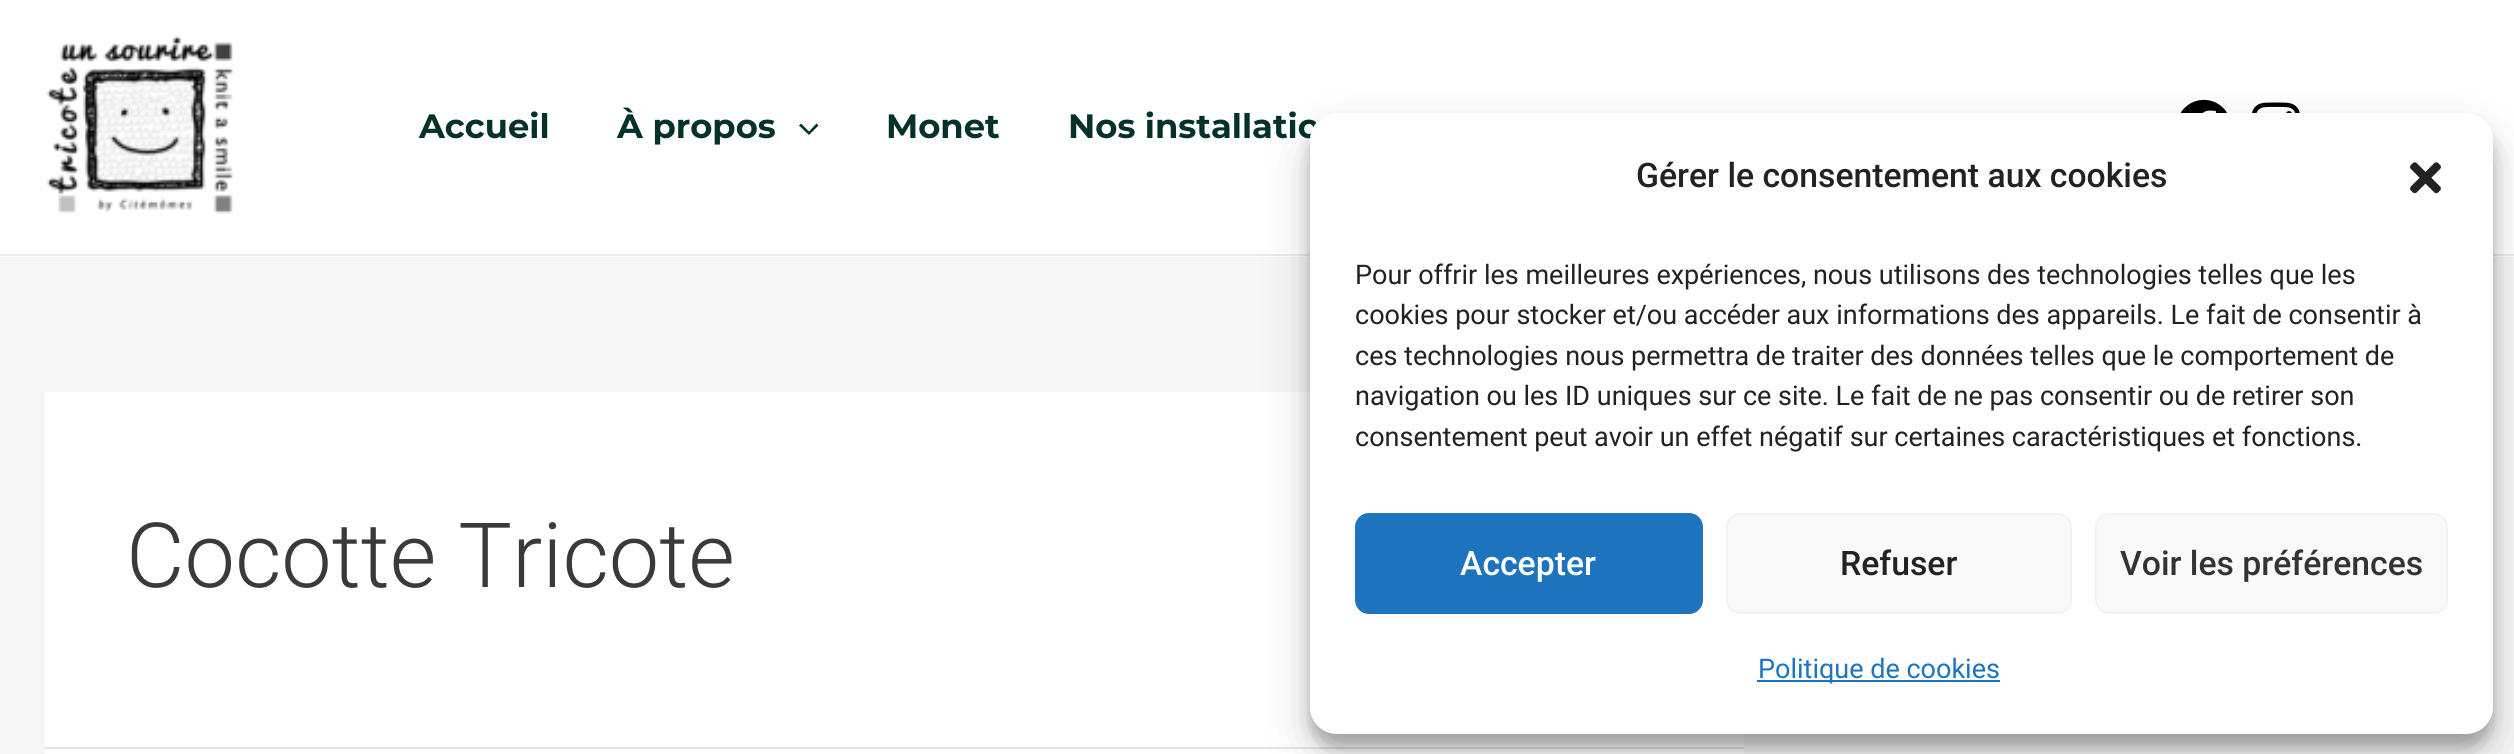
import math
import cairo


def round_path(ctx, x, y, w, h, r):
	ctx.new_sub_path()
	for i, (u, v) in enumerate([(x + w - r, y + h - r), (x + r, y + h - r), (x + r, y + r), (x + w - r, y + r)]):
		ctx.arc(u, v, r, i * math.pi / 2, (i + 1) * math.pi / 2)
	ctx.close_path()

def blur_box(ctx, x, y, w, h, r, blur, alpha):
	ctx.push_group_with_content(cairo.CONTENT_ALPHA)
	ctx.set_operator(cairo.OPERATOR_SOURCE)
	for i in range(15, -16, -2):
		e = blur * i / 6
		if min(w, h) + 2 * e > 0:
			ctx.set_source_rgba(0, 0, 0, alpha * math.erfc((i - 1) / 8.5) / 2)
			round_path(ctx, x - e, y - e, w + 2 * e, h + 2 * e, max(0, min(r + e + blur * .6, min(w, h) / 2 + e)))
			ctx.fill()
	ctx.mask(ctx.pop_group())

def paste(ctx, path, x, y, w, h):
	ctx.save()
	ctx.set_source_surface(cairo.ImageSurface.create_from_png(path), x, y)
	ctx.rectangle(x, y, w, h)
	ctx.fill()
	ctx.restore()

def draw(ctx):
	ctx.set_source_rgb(0.961, 0.961, 0.961)
	ctx.paint()
	ctx.set_source_rgb(1, 1, 1)
	ctx.rectangle(0, 0, 2514, 257)
	ctx.fill()
	ctx.set_source_rgb(0.918, 0.918, 0.918)
	ctx.rectangle(0, 254, 2514, 2)
	ctx.fill()
	paste(ctx, 'media/1.png', 46, 35, 188, 179)
	ctx.select_font_face('Montserrat Thin')
	ctx.set_font_size(33.75)
	ctx.set_source_rgb(0.016, 0.192, 0.165)
	ctx.move_to(419, 138)
	ctx.show_text('Accueil')
	ctx.move_to(617, 138)
	ctx.show_text('À propos')
	ctx.new_path()
	ctx.move_to(799, 125.5)
	ctx.line_to(809, 135)
	ctx.line_to(818.5, 125.5)
	ctx.line_to(816.5, 123.5)
	ctx.line_to(809, 131.5)
	ctx.line_to(801, 123.5)
	ctx.close_path()
	ctx.fill()
	ctx.move_to(886, 138)
	ctx.show_text('Monet')
	ctx.move_to(1068, 138)
	ctx.show_text('Nos installatio')
	paste(ctx, 'media/2.png', 2180, 99, 47, 14)
	paste(ctx, 'media/3.png', 2252, 102, 48, 11)
	ctx.set_source_rgb(1, 1, 1)
	ctx.rectangle(45, 392, 1699, 355)
	ctx.fill()
	ctx.set_source_rgb(0.898, 0.898, 0.898)
	ctx.rectangle(45, 747, 1699, 2)
	ctx.fill()
	ctx.select_font_face('Roboto Light')
	ctx.set_font_size(90)
	ctx.set_source_rgb(0.227, 0.227, 0.227)
	ctx.move_to(126, 587)
	ctx.show_text('Cocotte Tricote')
	ctx.set_source_rgb(1, 1, 1)
	ctx.rectangle(45, 749, 1699, 5)
	ctx.fill()
	ctx.set_source_rgb(0, 0, 0)
	blur_box(ctx, 1310, 126, 1183, 621, 27, 7, 0.23)
	blur_box(ctx, 1310, 135, 1183, 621, 27, 22.5, 0.19)
	ctx.set_source_rgb(1, 1, 1)
	round_path(ctx, 1310, 113, 1183, 621, 27)
	ctx.fill()
	ctx.select_font_face('Roboto Medium')
	ctx.set_font_size(33.75)
	ctx.set_source_rgb(0.133, 0.133, 0.133)
	ctx.move_to(1636, 187)
	ctx.show_text('Gérer le consentement aux cookies')
	paste(ctx, 'media/4.png', 2410, 162, 31, 32)
	ctx.select_font_face('Roboto')
	ctx.set_font_size(27)
	for x, y, s in [
		(1355, 284, 'Pour offrir les meilleures expériences, nous utilisons des technologies telles que les'),
		(1355, 324, 'cookies pour stocker et/ou accéder aux informations des appareils. Le fait de consentir à'),
		(1355, 365, 'ces technologies nous permettra de traiter des données telles que le comportement de'),
		(1355, 405, 'navigation ou les ID uniques sur ce site. Le fait de ne pas consentir ou de retirer son'),
		(1355, 446, 'consentement peut avoir un effet négatif sur certaines caractéristiques et fonctions.'),
	]:
		ctx.move_to(x, y)
		ctx.show_text(s)
	ctx.set_source_rgb(0.118, 0.451, 0.745)
	round_path(ctx, 1356, 514, 346, 99, 13)
	ctx.fill_preserve()
	ctx.stroke()
	ctx.select_font_face('Roboto Medium')
	ctx.set_font_size(33.75)
	ctx.set_source_rgb(1, 1, 1)
	ctx.move_to(1460, 575)
	ctx.show_text('Accepter')
	ctx.set_source_rgb(0.976, 0.976, 0.976)
	round_path(ctx, 1727, 514, 344, 99, 13)
	ctx.fill_preserve()
	ctx.set_source_rgb(0.949, 0.949, 0.949)
	ctx.stroke()
	ctx.set_source_rgb(0.133, 0.133, 0.133)
	ctx.move_to(1840, 575)
	ctx.show_text('Refuser')
	ctx.set_source_rgb(0.976, 0.976, 0.976)
	round_path(ctx, 2096, 514, 351, 99, 13)
	ctx.fill_preserve()
	ctx.set_source_rgb(0.949, 0.949, 0.949)
	ctx.stroke()
	ctx.set_source_rgb(0.2, 0.2, 0.2)
	ctx.move_to(2120, 575)
	ctx.show_text('Voir les préférences')
	ctx.set_source_rgb(0.118, 0.451, 0.745)
	ctx.rectangle(1757, 680, 243, 2)
	ctx.fill()
	ctx.select_font_face('Roboto')
	ctx.set_font_size(27)
	ctx.move_to(1758, 678)
	ctx.show_text('Politique de cookies')


surface = cairo.ImageSurface(cairo.FORMAT_RGB24, 2514, 754)
ctx = cairo.Context(surface)
options = cairo.FontOptions()
options.set_hint_metrics(cairo.HINT_METRICS_OFF)
options.set_hint_style(cairo.HINT_STYLE_NONE)
ctx.set_font_options(options)
ctx.set_miter_limit(4)
draw(ctx)
surface.write_to_png('image.png')
